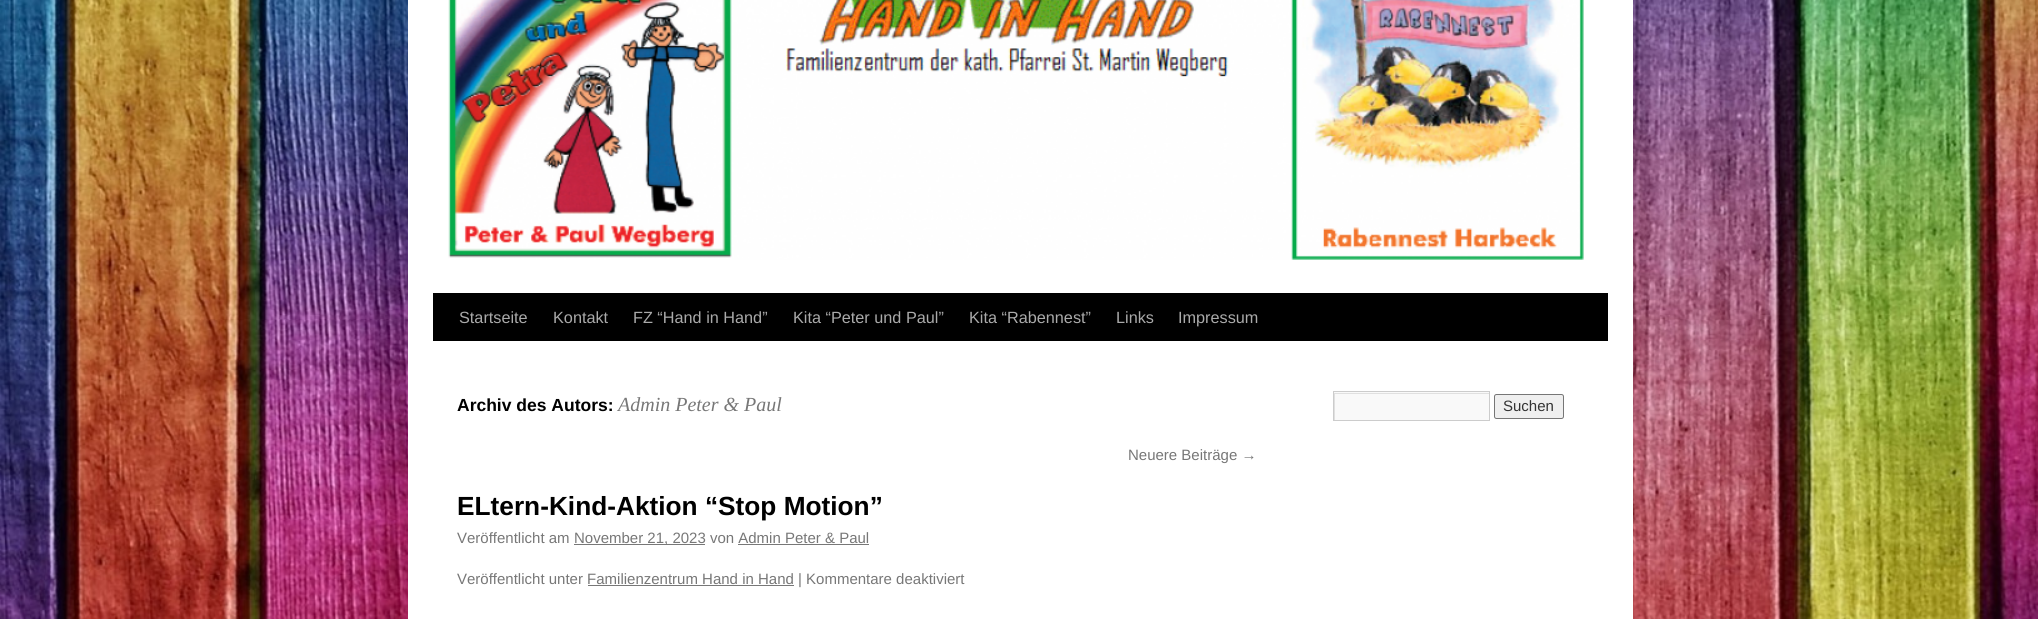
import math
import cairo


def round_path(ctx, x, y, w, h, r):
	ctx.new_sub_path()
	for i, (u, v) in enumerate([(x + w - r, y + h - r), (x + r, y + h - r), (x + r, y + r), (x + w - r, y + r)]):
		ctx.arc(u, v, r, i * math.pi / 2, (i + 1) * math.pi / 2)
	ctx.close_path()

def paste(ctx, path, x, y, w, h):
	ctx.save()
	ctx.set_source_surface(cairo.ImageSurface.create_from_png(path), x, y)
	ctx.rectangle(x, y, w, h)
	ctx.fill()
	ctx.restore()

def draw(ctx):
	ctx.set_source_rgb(1, 1, 1)
	ctx.paint()
	paste(ctx, 'media/1.png', 0, 0, 2038, 619)
	ctx.set_source_rgb(1, 1, 1)
	ctx.rectangle(408, 0, 1225, 619)
	ctx.fill()
	ctx.set_source_rgb(0, 0, 0)
	ctx.rectangle(433, 293, 1175, 48)
	ctx.fill()
	paste(ctx, 'media/2.png', 448, 0, 1136, 260)
	ctx.select_font_face('Liberation Sans')
	ctx.set_font_size(16.25)
	ctx.set_source_rgb(0.667, 0.667, 0.667)
	for x, y, s in [
		(459, 323, 'Startseite'),
		(553, 323, 'Kontakt'),
		(633, 323, 'FZ “Hand in Hand”'),
		(793, 323, 'Kita “Peter und Paul”'),
		(969, 323, 'Kita “Rabennest”'),
		(1116, 323, 'Links'),
		(1178, 323, 'Impressum'),
	]:
		ctx.move_to(x, y)
		ctx.show_text(s)
	ctx.select_font_face('Liberation Sans', cairo.FONT_SLANT_NORMAL, cairo.FONT_WEIGHT_BOLD)
	ctx.set_font_size(17.5)
	ctx.set_source_rgb(0, 0, 0)
	ctx.move_to(457, 411)
	ctx.show_text('Archiv des Autors:')
	ctx.select_font_face('Liberation Serif', cairo.FONT_SLANT_ITALIC)
	ctx.set_font_size(20)
	ctx.set_source_rgb(0.467, 0.467, 0.467)
	ctx.move_to(618, 411)
	ctx.show_text('Admin Peter & Paul')
	ctx.select_font_face('Liberation Sans')
	ctx.set_font_size(15)
	ctx.move_to(1128, 460)
	ctx.show_text('Neuere Beiträge →')
	ctx.select_font_face('Liberation Sans', cairo.FONT_SLANT_NORMAL, cairo.FONT_WEIGHT_BOLD)
	ctx.set_font_size(26.25)
	ctx.set_source_rgb(0, 0, 0)
	ctx.move_to(457, 515)
	ctx.show_text('ELtern-Kind-Aktion “Stop Motion”')
	ctx.select_font_face('Liberation Sans')
	ctx.set_font_size(15)
	ctx.set_source_rgb(0.467, 0.467, 0.467)
	ctx.move_to(457, 543)
	ctx.show_text('Veröffentlicht am')
	ctx.rectangle(574, 544, 131, 1)
	ctx.fill()
	ctx.move_to(574, 543)
	ctx.show_text('November 21, 2023 von Admin Peter & Paul')
	ctx.rectangle(738, 544, 131, 1)
	ctx.fill()
	ctx.move_to(457, 584)
	ctx.show_text('Veröffentlicht unter Familienzentrum Hand in Hand | Kommentare deaktiviert')
	ctx.rectangle(588, 585, 206, 1)
	ctx.fill()
	ctx.set_source_rgb(0.976, 0.976, 0.976)
	ctx.rectangle(1334, 392, 155, 28)
	ctx.fill()
	ctx.save()
	ctx.rectangle(1334, 393, 155, 27)
	ctx.clip()
	ctx.set_source_rgb(0.878, 0.878, 0.878)
	ctx.set_fill_rule(cairo.FILL_RULE_EVEN_ODD)
	ctx.new_path()
	ctx.move_to(1210, 269)
	ctx.line_to(1612, 269)
	ctx.line_to(1612, 544)
	ctx.line_to(1210, 544)
	ctx.close_path()
	ctx.move_to(1335, 394)
	ctx.line_to(1490, 394)
	ctx.line_to(1490, 421)
	ctx.line_to(1335, 421)
	ctx.close_path()
	ctx.fill()
	ctx.restore()
	ctx.rectangle(1333.5, 391.5, 156, 29)
	ctx.set_source_rgb(0.8, 0.8, 0.8)
	ctx.set_line_width(1)
	ctx.stroke()
	ctx.set_source_rgb(0.937, 0.937, 0.937)
	round_path(ctx, 1494.5, 394.5, 69, 24, 2)
	ctx.fill_preserve()
	ctx.set_source_rgb(0.463, 0.463, 0.463)
	ctx.stroke()
	ctx.set_source_rgb(0.2, 0.2, 0.2)
	ctx.move_to(1503, 411)
	ctx.show_text('Suchen')


surface = cairo.ImageSurface(cairo.FORMAT_RGB24, 2038, 619)
ctx = cairo.Context(surface)
options = cairo.FontOptions()
options.set_hint_metrics(cairo.HINT_METRICS_OFF)
options.set_hint_style(cairo.HINT_STYLE_NONE)
ctx.set_font_options(options)
ctx.set_miter_limit(4)
draw(ctx)
surface.write_to_png('image.png')
